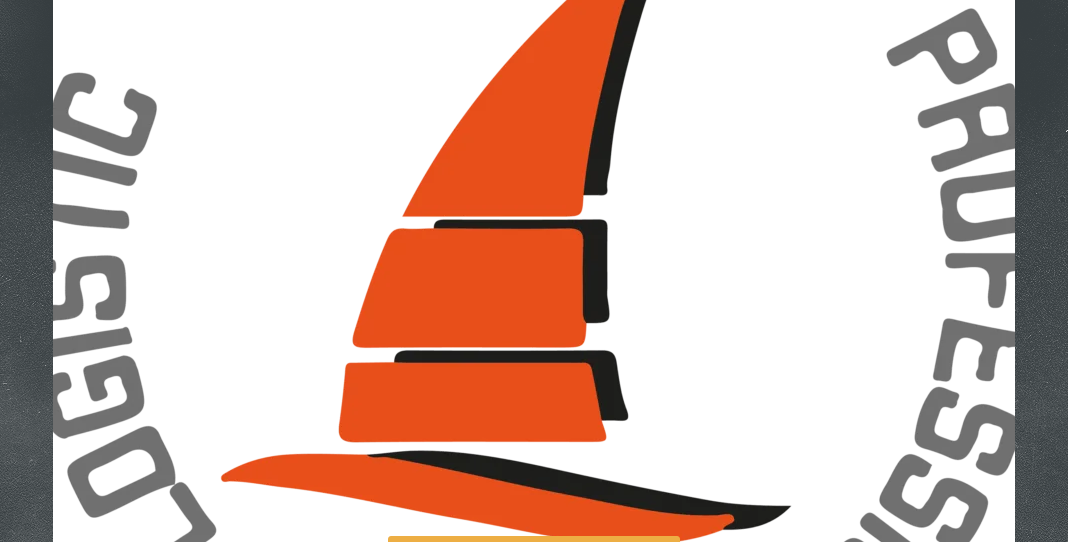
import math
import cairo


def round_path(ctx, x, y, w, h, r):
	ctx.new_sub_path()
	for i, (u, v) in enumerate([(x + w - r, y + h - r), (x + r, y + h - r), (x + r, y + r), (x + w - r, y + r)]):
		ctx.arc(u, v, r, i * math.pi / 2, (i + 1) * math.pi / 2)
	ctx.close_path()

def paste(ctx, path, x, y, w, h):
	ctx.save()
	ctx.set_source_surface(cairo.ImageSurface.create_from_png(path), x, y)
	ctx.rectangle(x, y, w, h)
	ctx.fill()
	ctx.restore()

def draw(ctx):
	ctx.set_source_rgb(0.212, 0.239, 0.251)
	ctx.paint()
	paste(ctx, 'media/1.png', 0, 0, 1068, 542)
	ctx.set_source_rgb(1, 1, 1)
	ctx.rectangle(53, 0, 962, 542)
	ctx.fill()
	paste(ctx, 'media/2.png', 53, 0, 962, 542)
	ctx.set_source_rgb(0.929, 0.682, 0.267)
	round_path(ctx, 388, 536, 292, 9, 3)
	ctx.fill()


surface = cairo.ImageSurface(cairo.FORMAT_RGB24, 1068, 542)
ctx = cairo.Context(surface)
options = cairo.FontOptions()
options.set_hint_metrics(cairo.HINT_METRICS_OFF)
options.set_hint_style(cairo.HINT_STYLE_NONE)
ctx.set_font_options(options)
ctx.set_miter_limit(4)
draw(ctx)
surface.write_to_png('image.png')
